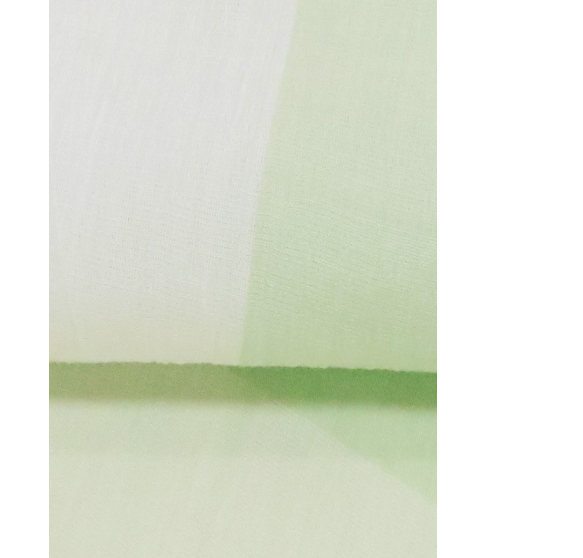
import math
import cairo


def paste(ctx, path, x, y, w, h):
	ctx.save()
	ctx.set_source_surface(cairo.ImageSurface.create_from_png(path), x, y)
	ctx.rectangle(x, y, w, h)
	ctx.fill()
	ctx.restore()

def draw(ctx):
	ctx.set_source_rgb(1, 1, 1)
	ctx.paint()
	paste(ctx, 'media/1.png', 49, 0, 388, 558)


surface = cairo.ImageSurface(cairo.FORMAT_RGB24, 583, 558)
ctx = cairo.Context(surface)
options = cairo.FontOptions()
options.set_hint_metrics(cairo.HINT_METRICS_OFF)
options.set_hint_style(cairo.HINT_STYLE_NONE)
ctx.set_font_options(options)
ctx.set_miter_limit(4)
draw(ctx)
surface.write_to_png('image.png')
